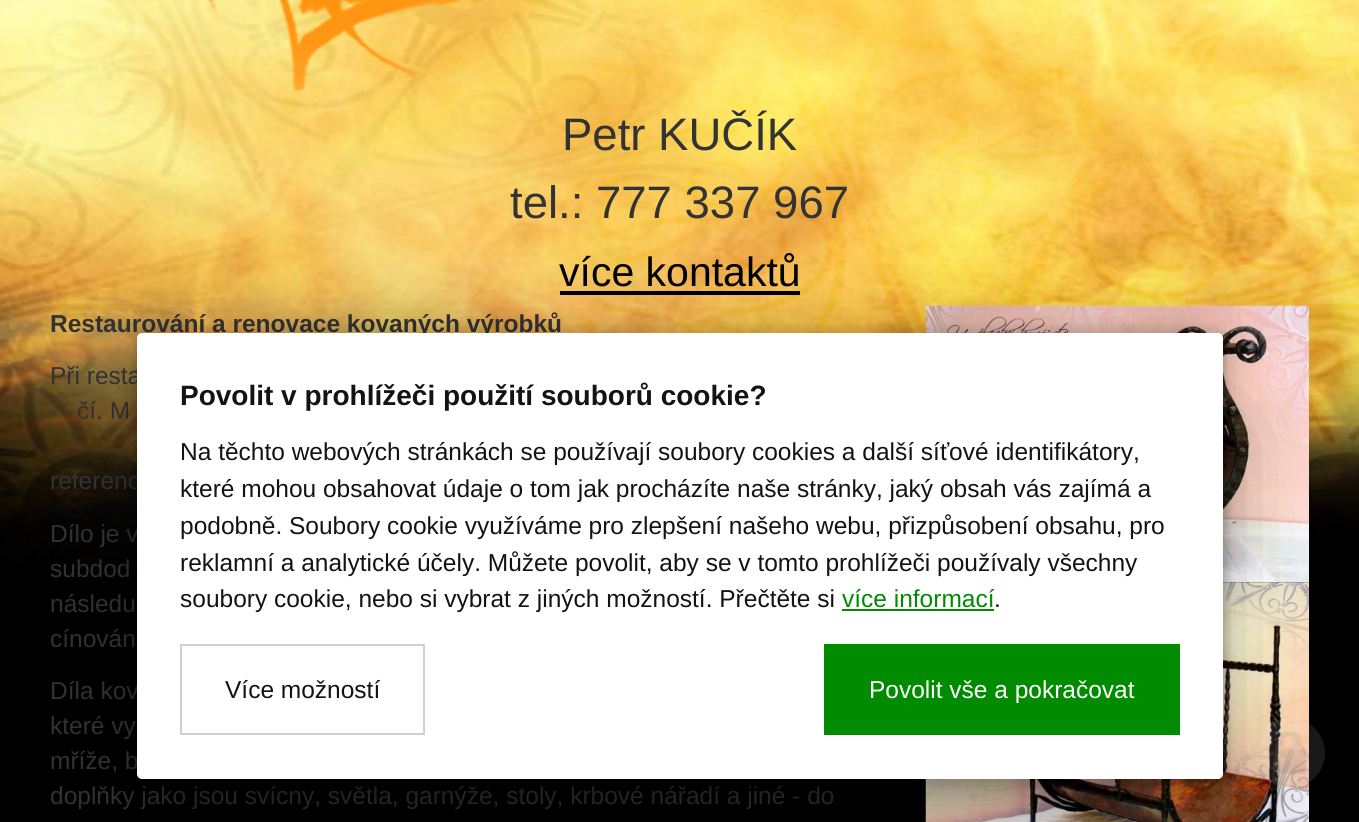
import math
import cairo


def round_path(ctx, x, y, w, h, r):
	ctx.new_sub_path()
	for i, (u, v) in enumerate([(x + w - r, y + h - r), (x + r, y + h - r), (x + r, y + r), (x + w - r, y + r)]):
		ctx.arc(u, v, r, i * math.pi / 2, (i + 1) * math.pi / 2)
	ctx.close_path()

def blur_box(ctx, x, y, w, h, r, blur, alpha):
	ctx.push_group_with_content(cairo.CONTENT_ALPHA)
	ctx.set_operator(cairo.OPERATOR_SOURCE)
	for i in range(15, -16, -2):
		e = blur * i / 6
		if min(w, h) + 2 * e > 0:
			ctx.set_source_rgba(0, 0, 0, alpha * math.erfc((i - 1) / 8.5) / 2)
			round_path(ctx, x - e, y - e, w + 2 * e, h + 2 * e, max(0, min(r + e + blur * .6, min(w, h) / 2 + e)))
			ctx.fill()
	ctx.mask(ctx.pop_group())

def paste(ctx, path, x, y, w, h):
	ctx.save()
	ctx.set_source_surface(cairo.ImageSurface.create_from_png(path), x, y)
	ctx.rectangle(x, y, w, h)
	ctx.fill()
	ctx.restore()

def draw(ctx):
	ctx.set_source_rgb(0, 0, 0)
	ctx.paint()
	paste(ctx, 'media/1.png', 0, 0, 1359, 571)
	paste(ctx, 'media/2.png', 208, 0, 254, 101)
	ctx.select_font_face('Liberation Sans')
	ctx.set_font_size(45.5)
	ctx.set_source_rgb(0.2, 0.2, 0.2)
	ctx.move_to(562, 150)
	ctx.show_text('Petr KUČÍK')
	ctx.move_to(510, 218)
	ctx.show_text('tel.: 777 337 967')
	ctx.set_font_size(41)
	ctx.set_source_rgb(0, 0, 0)
	ctx.move_to(559, 286)
	ctx.show_text('více kontaktů')
	ctx.rectangle(560, 291, 240, 4)
	ctx.fill()
	ctx.select_font_face('Liberation Sans', cairo.FONT_SLANT_NORMAL, cairo.FONT_WEIGHT_BOLD)
	ctx.set_font_size(24.5)
	ctx.set_source_rgb(0.2, 0.2, 0.2)
	ctx.move_to(50, 332)
	ctx.show_text('Restaurování a renovace kovaných výrobků')
	ctx.select_font_face('Liberation Sans')
	for x, y, s in [
		(50, 384, 'Při resta'),
		(77, 419, 'čí. M'),
		(50, 489, 'referenc'),
		(50, 542, 'Dílo je v'),
		(50, 577, 'subdod'),
		(50, 612, 'následu'),
		(50, 647, 'cínován'),
		(50, 699, 'Díla kov'),
		(50, 734, 'které vy'),
		(50, 769, 'mříže, b'),
		(50, 804, 'doplňky jako jsou svícny, světla, garnýže, stoly, krbové nářadí a jiné - do'),
	]:
		ctx.move_to(x, y)
		ctx.show_text(s)
	paste(ctx, 'media/3.png', 925, 305, 384, 278)
	paste(ctx, 'media/4.png', 925, 582, 384, 240)
	ctx.set_source_rgb(0, 0, 0)
	blur_box(ctx, 137, 327, 1086, 447, 5, 4.5, 0.09)
	ctx.set_source_rgba(1, 1, 1, 0.1)
	ctx.arc(1290, 753, 35, 0, 2 * math.pi)
	ctx.fill()
	ctx.set_source_rgb(0, 0, 0)
	blur_box(ctx, 137, 354, 1086, 446, 5, 11.5, 0.17)
	blur_box(ctx, 137, 340, 1086, 446, 5, 5, 0.12)
	paste(ctx, 'media/5.png', 1274, 731, 32, 43)
	blur_box(ctx, 137, 312, 1086, 446, 5, 26, 0.12)
	blur_box(ctx, 137, 427, 1086, 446, 5, 48, 0.25)
	ctx.set_source_rgb(1, 1, 1)
	round_path(ctx, 137, 333, 1086, 446, 5)
	ctx.fill()
	ctx.select_font_face('Liberation Sans', cairo.FONT_SLANT_NORMAL, cairo.FONT_WEIGHT_BOLD)
	ctx.set_font_size(28)
	ctx.set_source_rgb(0.078, 0.078, 0.078)
	ctx.move_to(180, 405)
	ctx.show_text('Povolit v prohlížeči použití souborů cookie?')
	ctx.select_font_face('Liberation Sans')
	ctx.set_font_size(24.5)
	for x, y, s in [
		(180, 460, 'Na těchto webových stránkách se používají soubory cookies a další síťové identifikátory,'),
		(180, 497, 'které mohou obsahovat údaje o tom jak procházíte naše stránky, jaký obsah vás zajímá a'),
		(180, 534, 'podobně. Soubory cookie využíváme pro zlepšení našeho webu, přizpůsobení obsahu, pro'),
		(180, 571, 'reklamní a analytické účely. Můžete povolit, aby se v tomto prohlížeči používaly všechny'),
		(180, 607, 'soubory cookie, nebo si vybrat z jiných možností. Přečtěte si'),
	]:
		ctx.move_to(x, y)
		ctx.show_text(s)
	ctx.set_source_rgb(0, 0.545, 0)
	ctx.move_to(842, 607)
	ctx.show_text('více informací')
	ctx.rectangle(842, 609, 152, 2)
	ctx.fill()
	ctx.set_source_rgb(0.078, 0.078, 0.078)
	ctx.move_to(994, 607)
	ctx.show_text('.')
	ctx.rectangle(181, 645, 243, 89)
	ctx.set_source_rgb(0.816, 0.816, 0.816)
	ctx.stroke()
	ctx.set_source_rgb(0.078, 0.078, 0.078)
	ctx.move_to(225, 698)
	ctx.show_text('Více možností')
	ctx.set_source_rgb(0, 0.545, 0)
	ctx.rectangle(824, 644, 356, 91)
	ctx.fill()
	ctx.set_source_rgb(1, 1, 1)
	ctx.move_to(869, 698)
	ctx.show_text('Povolit vše a pokračovat')


surface = cairo.ImageSurface(cairo.FORMAT_RGB24, 1359, 822)
ctx = cairo.Context(surface)
options = cairo.FontOptions()
options.set_hint_metrics(cairo.HINT_METRICS_OFF)
options.set_hint_style(cairo.HINT_STYLE_NONE)
ctx.set_font_options(options)
ctx.set_miter_limit(4)
draw(ctx)
surface.write_to_png('image.png')
